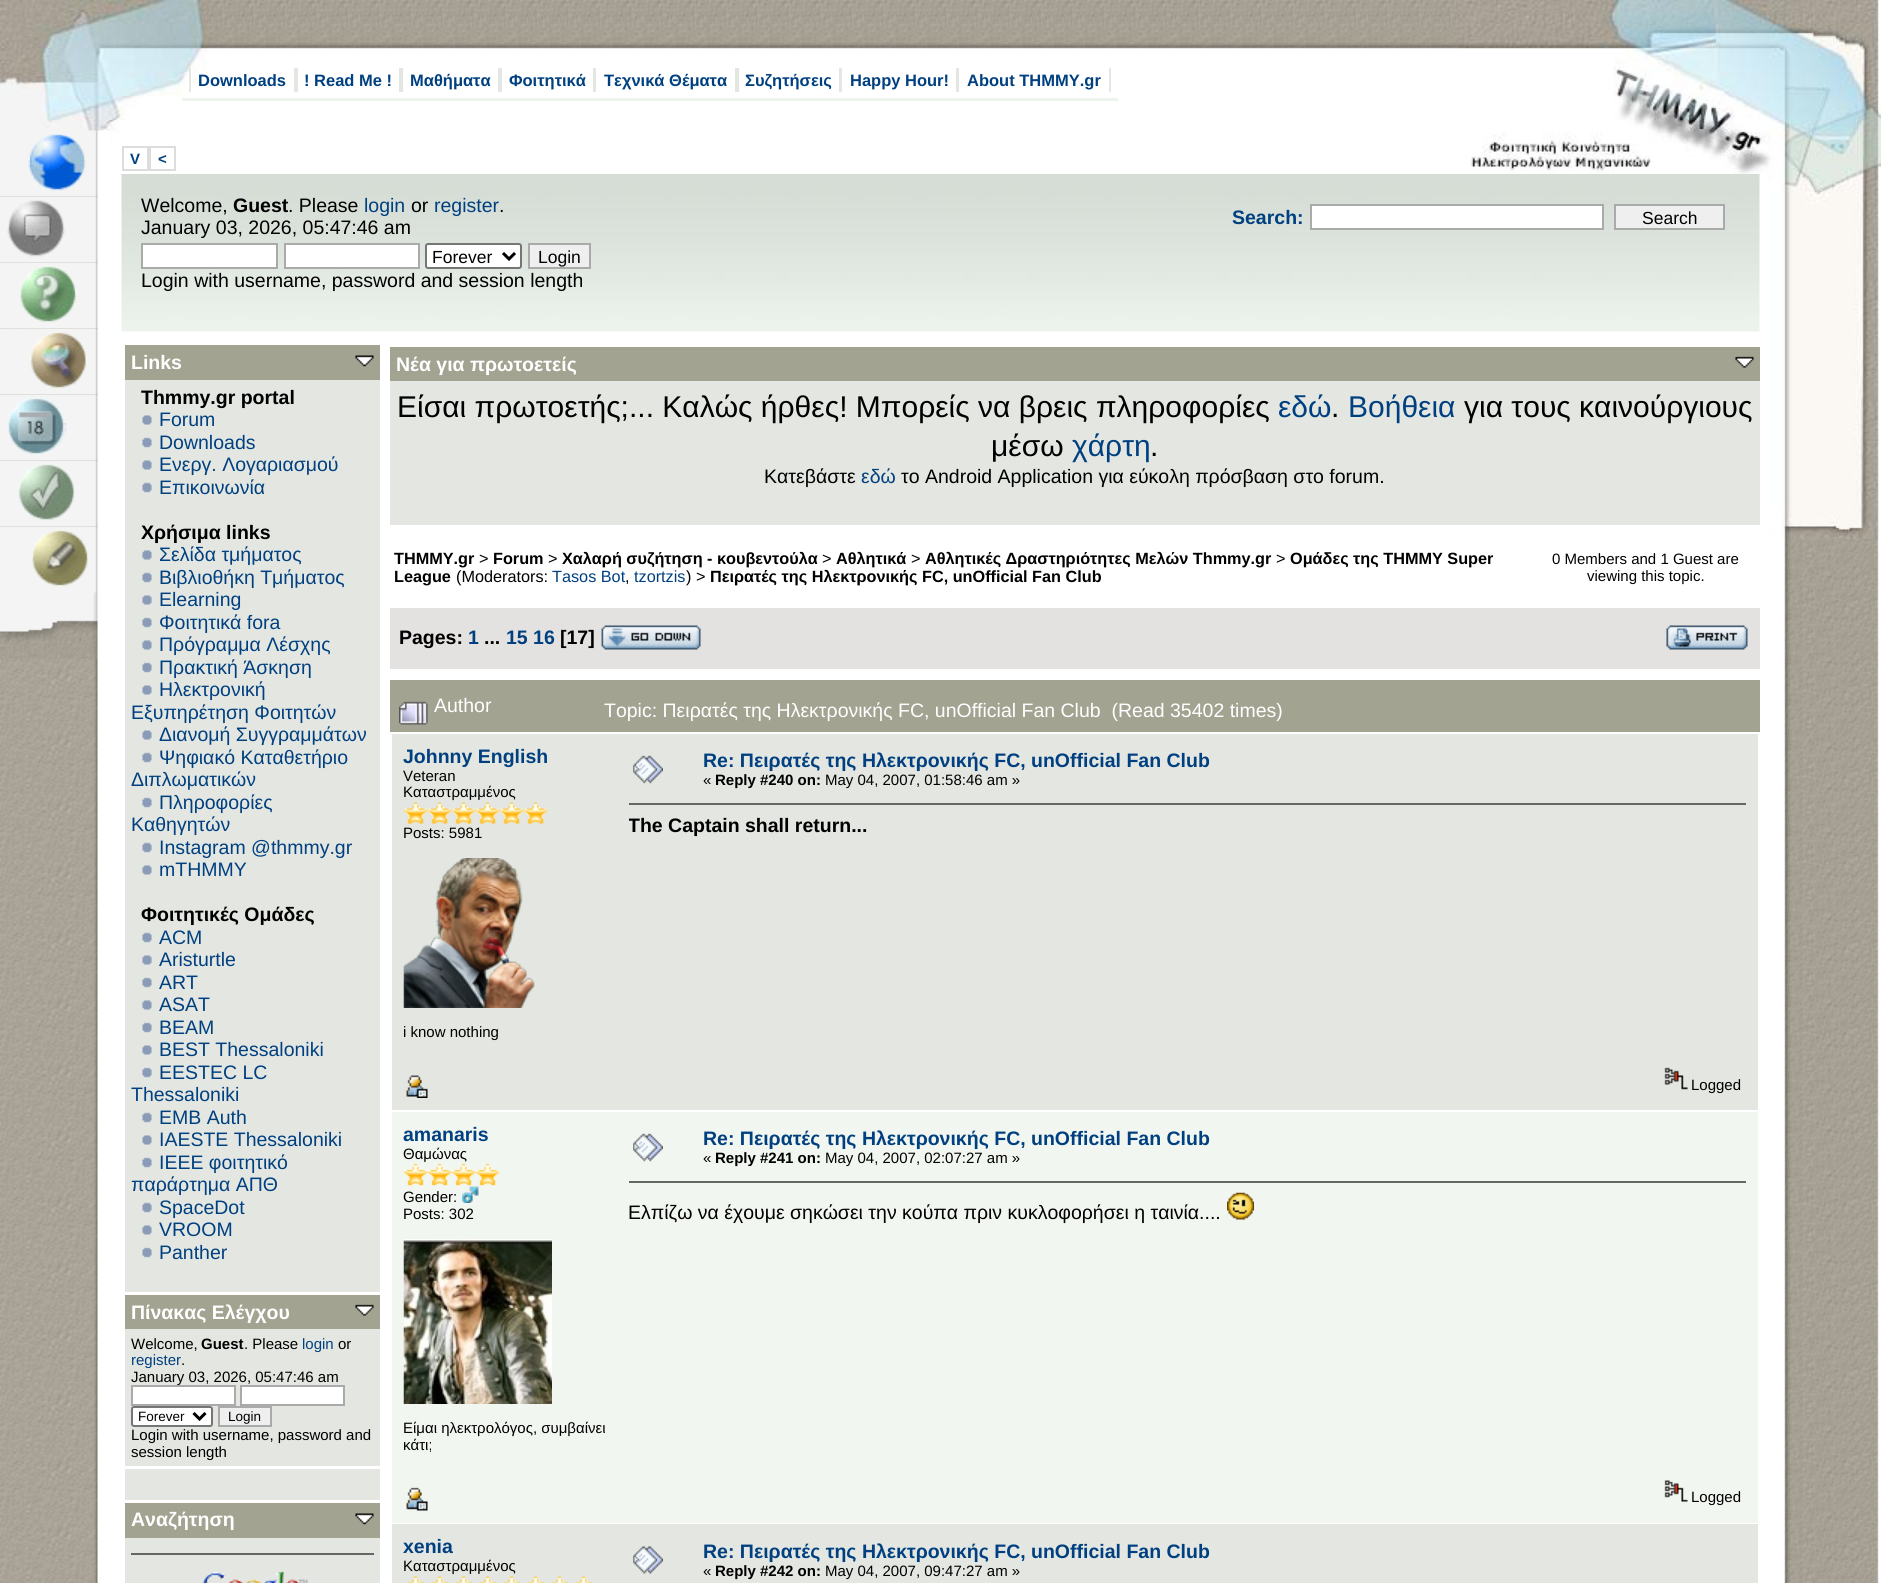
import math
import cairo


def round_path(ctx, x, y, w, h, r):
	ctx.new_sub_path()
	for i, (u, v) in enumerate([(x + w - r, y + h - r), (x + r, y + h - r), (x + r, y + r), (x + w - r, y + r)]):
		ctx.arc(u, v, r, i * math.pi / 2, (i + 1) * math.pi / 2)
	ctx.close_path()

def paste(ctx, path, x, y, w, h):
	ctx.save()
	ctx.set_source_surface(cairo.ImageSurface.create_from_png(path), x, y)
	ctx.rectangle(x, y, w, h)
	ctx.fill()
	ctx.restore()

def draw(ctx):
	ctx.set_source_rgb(1, 1, 1)
	ctx.paint()
	paste(ctx, 'media/1.png', 0, 196, 98, 1387)
	paste(ctx, 'media/2.png', 1784, 538, 95, 1045)
	paste(ctx, 'media/3.png', 207, 0, 1251, 96)
	paste(ctx, 'media/4.png', 0, 0, 207, 165)
	paste(ctx, 'media/5.png', 1458, 0, 423, 539)
	ctx.set_source_rgb(0.929, 0.957, 0.929)
	ctx.rectangle(182, 98, 936, 3)
	ctx.fill()
	ctx.set_source_rgb(0.89, 0.902, 0.882)
	ctx.rectangle(294, 68, 4, 24)
	ctx.rectangle(189, 68, 2, 24)
	ctx.fill()
	ctx.select_font_face('Liberation Sans', cairo.FONT_SLANT_NORMAL, cairo.FONT_WEIGHT_BOLD)
	ctx.set_font_size(16.5)
	ctx.set_source_rgb(0, 0.251, 0.502)
	ctx.move_to(198, 86)
	ctx.show_text('Downloads')
	ctx.set_source_rgb(0.89, 0.902, 0.882)
	ctx.rectangle(399, 68, 4, 24)
	ctx.fill()
	ctx.set_source_rgb(0, 0.251, 0.502)
	ctx.move_to(304, 86)
	ctx.show_text('! Read Me !')
	ctx.set_source_rgb(0.89, 0.902, 0.882)
	ctx.rectangle(498, 68, 4, 24)
	ctx.fill()
	ctx.set_source_rgb(0, 0.251, 0.502)
	ctx.move_to(410, 86)
	ctx.show_text('Μαθήματα')
	ctx.set_source_rgb(0.89, 0.902, 0.882)
	ctx.rectangle(593, 68, 3, 24)
	ctx.fill()
	ctx.set_source_rgb(0, 0.251, 0.502)
	ctx.move_to(509, 86)
	ctx.show_text('Φοιτητικά')
	ctx.set_source_rgb(0.89, 0.902, 0.882)
	ctx.rectangle(735, 68, 4, 24)
	ctx.fill()
	ctx.set_source_rgb(0, 0.251, 0.502)
	ctx.move_to(604, 86)
	ctx.show_text('Τεχνικά Θέματα')
	ctx.set_source_rgb(0.89, 0.902, 0.882)
	ctx.rectangle(839, 68, 3, 24)
	ctx.fill()
	ctx.set_source_rgb(0, 0.251, 0.502)
	ctx.move_to(745, 86)
	ctx.show_text('Συζητήσεις')
	ctx.set_source_rgb(0.89, 0.902, 0.882)
	ctx.rectangle(956, 68, 3, 24)
	ctx.fill()
	ctx.set_source_rgb(0, 0.251, 0.502)
	ctx.move_to(850, 86)
	ctx.show_text('Happy Hour!')
	ctx.set_source_rgb(0.89, 0.902, 0.882)
	ctx.rectangle(1109, 68, 2, 24)
	ctx.fill()
	ctx.set_source_rgb(0, 0.251, 0.502)
	ctx.move_to(967, 86)
	ctx.show_text('About THMMY.gr')
	ctx.rectangle(123, 147, 25, 23)
	ctx.set_source_rgb(0.867, 0.867, 0.867)
	ctx.stroke()
	ctx.set_font_size(15)
	ctx.set_source_rgb(0, 0.251, 0.502)
	ctx.move_to(130, 164)
	ctx.show_text('V')
	ctx.rectangle(150, 147, 25, 23)
	ctx.set_source_rgb(0.867, 0.867, 0.867)
	ctx.stroke()
	ctx.set_source_rgb(0, 0.251, 0.502)
	ctx.move_to(158, 164)
	ctx.show_text('<')
	paste(ctx, 'media/6.png', 121, 174, 1639, 158)
	paste(ctx, 'media/7.png', 0, 592, 98, 67)
	paste(ctx, 'media/8.png', 0, 130, 110, 67)
	paste(ctx, 'media/9.png', 28, 133, 58, 58)
	paste(ctx, 'media/10.png', 0, 196, 98, 67)
	paste(ctx, 'media/11.png', 7, 200, 58, 57)
	paste(ctx, 'media/12.png', 0, 262, 98, 67)
	paste(ctx, 'media/13.png', 19, 265, 58, 58)
	paste(ctx, 'media/14.png', 0, 328, 98, 67)
	paste(ctx, 'media/15.png', 30, 332, 57, 57)
	paste(ctx, 'media/16.png', 0, 394, 98, 67)
	paste(ctx, 'media/17.png', 7, 396, 60, 59)
	paste(ctx, 'media/10.png', 0, 460, 98, 67)
	paste(ctx, 'media/18.png', 18, 463, 57, 58)
	paste(ctx, 'media/19.png', 0, 526, 98, 67)
	paste(ctx, 'media/20.png', 31, 530, 58, 57)
	ctx.select_font_face('Liberation Sans')
	ctx.set_font_size(19.5)
	ctx.set_source_rgb(0, 0, 0)
	ctx.move_to(141, 212)
	ctx.show_text('Welcome,')
	ctx.select_font_face('Liberation Sans', cairo.FONT_SLANT_NORMAL, cairo.FONT_WEIGHT_BOLD)
	ctx.move_to(233, 212)
	ctx.show_text('Guest')
	ctx.select_font_face('Liberation Sans')
	ctx.move_to(288, 212)
	ctx.show_text('. Please')
	ctx.set_source_rgb(0, 0.251, 0.502)
	ctx.move_to(364, 212)
	ctx.show_text('login')
	ctx.set_source_rgb(0, 0, 0)
	ctx.move_to(411, 212)
	ctx.show_text('or')
	ctx.set_source_rgb(0, 0.251, 0.502)
	ctx.move_to(434, 212)
	ctx.show_text('register')
	ctx.set_source_rgb(0, 0, 0)
	ctx.move_to(499, 212)
	ctx.show_text('.')
	ctx.move_to(141, 234)
	ctx.show_text('January 03, 2026, 05:47:46 am')
	ctx.set_source_rgb(1, 1, 1)
	ctx.rectangle(142, 244, 135, 24)
	ctx.fill_preserve()
	ctx.set_source_rgb(0.667, 0.667, 0.667)
	ctx.stroke()
	ctx.set_source_rgb(1, 1, 1)
	ctx.rectangle(285, 244, 134, 24)
	ctx.fill_preserve()
	ctx.set_source_rgb(0.667, 0.667, 0.667)
	ctx.stroke()
	ctx.set_source_rgb(1, 1, 1)
	round_path(ctx, 426, 244, 95, 24, 2)
	ctx.fill_preserve()
	ctx.set_source_rgb(0.463, 0.463, 0.463)
	ctx.stroke()
	ctx.new_path()
	ctx.move_to(503, 253)
	ctx.line_to(509, 259)
	ctx.line_to(515, 253)
	ctx.set_source_rgb(0, 0, 0)
	ctx.set_line_width(3)
	ctx.stroke()
	ctx.set_font_size(17.5)
	ctx.move_to(432, 263)
	ctx.show_text('Forever')
	ctx.set_source_rgb(0.937, 0.937, 0.937)
	ctx.rectangle(529, 244, 61, 24)
	ctx.fill_preserve()
	ctx.set_source_rgb(0.667, 0.667, 0.667)
	ctx.set_line_width(2)
	ctx.stroke()
	ctx.set_source_rgb(0, 0, 0)
	ctx.move_to(538, 263)
	ctx.show_text('Login')
	ctx.set_font_size(19.5)
	ctx.move_to(141, 287)
	ctx.show_text('Login with username, password and session length')
	ctx.select_font_face('Liberation Sans', cairo.FONT_SLANT_NORMAL, cairo.FONT_WEIGHT_BOLD)
	ctx.set_source_rgb(0, 0.251, 0.502)
	ctx.move_to(1232, 224)
	ctx.show_text('Search:')
	ctx.set_source_rgb(1, 1, 1)
	ctx.rectangle(1311, 205, 292, 24)
	ctx.fill_preserve()
	ctx.set_source_rgb(0.667, 0.667, 0.667)
	ctx.stroke()
	ctx.set_source_rgb(0.937, 0.937, 0.937)
	ctx.rectangle(1615, 205, 109, 24)
	ctx.fill_preserve()
	ctx.set_source_rgb(0.667, 0.667, 0.667)
	ctx.stroke()
	ctx.select_font_face('Liberation Sans')
	ctx.set_font_size(17.5)
	ctx.set_source_rgb(0, 0, 0)
	ctx.move_to(1642, 224)
	ctx.show_text('Search')
	ctx.set_source_rgb(0.639, 0.639, 0.573)
	ctx.rectangle(125, 345, 255, 35)
	ctx.fill()
	ctx.select_font_face('Liberation Sans', cairo.FONT_SLANT_NORMAL, cairo.FONT_WEIGHT_BOLD)
	ctx.set_font_size(19.5)
	ctx.set_source_rgb(1, 1, 1)
	ctx.move_to(131, 369)
	ctx.show_text('Links')
	paste(ctx, 'media/21.png', 355, 355, 19, 12)
	ctx.set_source_rgb(0.89, 0.902, 0.882)
	ctx.rectangle(125, 380, 255, 912)
	ctx.fill()
	ctx.set_source_rgb(0, 0, 0)
	ctx.move_to(141, 404)
	ctx.show_text('Thmmy.gr portal')
	paste(ctx, 'media/22.png', 142, 415, 10, 10)
	ctx.select_font_face('Liberation Sans')
	ctx.set_source_rgb(0, 0.251, 0.502)
	ctx.move_to(159, 426)
	ctx.show_text('Forum')
	paste(ctx, 'media/23.png', 142, 437, 10, 11)
	ctx.move_to(159, 449)
	ctx.show_text('Downloads')
	paste(ctx, 'media/22.png', 142, 460, 10, 10)
	ctx.move_to(159, 471)
	ctx.show_text('Ενεργ. Λογαριασμού')
	paste(ctx, 'media/23.png', 142, 482, 10, 11)
	ctx.move_to(159, 494)
	ctx.show_text('Επικοινωνία')
	ctx.select_font_face('Liberation Sans', cairo.FONT_SLANT_NORMAL, cairo.FONT_WEIGHT_BOLD)
	ctx.set_source_rgb(0, 0, 0)
	ctx.move_to(141, 539)
	ctx.show_text('Χρήσιμα links')
	paste(ctx, 'media/22.png', 142, 550, 10, 10)
	ctx.select_font_face('Liberation Sans')
	ctx.set_source_rgb(0, 0.251, 0.502)
	ctx.move_to(159, 561)
	ctx.show_text('Σελίδα τμήματος')
	paste(ctx, 'media/23.png', 142, 572, 10, 11)
	ctx.move_to(159, 584)
	ctx.show_text('Βιβλιοθήκη Τμήματος')
	paste(ctx, 'media/22.png', 142, 595, 10, 10)
	ctx.move_to(159, 606)
	ctx.show_text('Elearning')
	paste(ctx, 'media/23.png', 142, 617, 10, 11)
	ctx.move_to(159, 629)
	ctx.show_text('Φοιτητικά fora')
	paste(ctx, 'media/22.png', 142, 640, 10, 10)
	ctx.move_to(159, 651)
	ctx.show_text('Πρόγραμμα Λέσχης')
	paste(ctx, 'media/23.png', 142, 662, 10, 11)
	ctx.move_to(159, 674)
	ctx.show_text('Πρακτική Άσκηση')
	paste(ctx, 'media/22.png', 142, 685, 10, 10)
	ctx.move_to(159, 696)
	ctx.show_text('Ηλεκτρονική')
	ctx.move_to(131, 719)
	ctx.show_text('Εξυπηρέτηση Φοιτητών')
	paste(ctx, 'media/22.png', 142, 730, 10, 10)
	ctx.move_to(159, 741)
	ctx.show_text('Διανομή Συγγραμμάτων')
	paste(ctx, 'media/23.png', 142, 752, 10, 11)
	ctx.move_to(159, 764)
	ctx.show_text('Ψηφιακό Καταθετήριο')
	ctx.move_to(131, 786)
	ctx.show_text('Διπλωματικών')
	paste(ctx, 'media/23.png', 142, 797, 10, 11)
	ctx.move_to(159, 809)
	ctx.show_text('Πληροφορίες')
	ctx.move_to(131, 831)
	ctx.show_text('Καθηγητών')
	paste(ctx, 'media/23.png', 142, 842, 10, 11)
	ctx.move_to(159, 854)
	ctx.show_text('Instagram @thmmy.gr')
	paste(ctx, 'media/22.png', 142, 865, 10, 10)
	ctx.move_to(159, 876)
	ctx.show_text('mTHMMY')
	ctx.select_font_face('Liberation Sans', cairo.FONT_SLANT_NORMAL, cairo.FONT_WEIGHT_BOLD)
	ctx.set_source_rgb(0, 0, 0)
	ctx.move_to(141, 921)
	ctx.show_text('Φοιτητικές Ομάδες')
	paste(ctx, 'media/23.png', 142, 932, 10, 11)
	ctx.select_font_face('Liberation Sans')
	ctx.set_source_rgb(0, 0.251, 0.502)
	ctx.move_to(159, 944)
	ctx.show_text('ACM')
	paste(ctx, 'media/22.png', 142, 955, 10, 10)
	ctx.move_to(159, 966)
	ctx.show_text('Aristurtle')
	paste(ctx, 'media/23.png', 142, 977, 10, 11)
	ctx.move_to(159, 989)
	ctx.show_text('ART')
	paste(ctx, 'media/22.png', 142, 1000, 10, 10)
	ctx.move_to(159, 1011)
	ctx.show_text('ASAT')
	paste(ctx, 'media/23.png', 142, 1022, 10, 11)
	ctx.move_to(159, 1034)
	ctx.show_text('BEAM')
	paste(ctx, 'media/22.png', 142, 1045, 10, 10)
	ctx.move_to(159, 1056)
	ctx.show_text('BEST Thessaloniki')
	paste(ctx, 'media/23.png', 142, 1067, 10, 11)
	ctx.move_to(159, 1079)
	ctx.show_text('EESTEC LC')
	ctx.move_to(131, 1101)
	ctx.show_text('Thessaloniki')
	paste(ctx, 'media/23.png', 142, 1112, 10, 11)
	ctx.move_to(159, 1124)
	ctx.show_text('EΜΒ Auth')
	paste(ctx, 'media/22.png', 142, 1135, 10, 10)
	ctx.move_to(159, 1146)
	ctx.show_text('IAESTE Thessaloniki')
	paste(ctx, 'media/23.png', 142, 1157, 10, 11)
	ctx.move_to(159, 1169)
	ctx.show_text('IEEE φοιτητικό')
	ctx.move_to(131, 1191)
	ctx.show_text('παράρτημα ΑΠΘ')
	paste(ctx, 'media/23.png', 142, 1202, 10, 11)
	ctx.move_to(159, 1214)
	ctx.show_text('SpaceDot')
	paste(ctx, 'media/22.png', 142, 1225, 10, 10)
	ctx.move_to(159, 1236)
	ctx.show_text('VROOM')
	paste(ctx, 'media/23.png', 142, 1247, 10, 11)
	ctx.move_to(159, 1259)
	ctx.show_text('Panther')
	ctx.set_source_rgb(0.639, 0.639, 0.573)
	ctx.rectangle(125, 1295, 255, 34)
	ctx.fill()
	ctx.select_font_face('Liberation Sans', cairo.FONT_SLANT_NORMAL, cairo.FONT_WEIGHT_BOLD)
	ctx.set_source_rgb(1, 1, 1)
	ctx.move_to(131, 1319)
	ctx.show_text('Πίνακας Ελέγχου')
	paste(ctx, 'media/24.png', 355, 1304, 19, 12)
	ctx.set_source_rgb(0.89, 0.902, 0.882)
	ctx.rectangle(125, 1329, 255, 137)
	ctx.fill()
	ctx.select_font_face('Liberation Sans')
	ctx.set_font_size(15)
	ctx.set_source_rgb(0, 0, 0)
	ctx.move_to(131, 1349)
	ctx.show_text('Welcome,')
	ctx.select_font_face('Liberation Sans', cairo.FONT_SLANT_NORMAL, cairo.FONT_WEIGHT_BOLD)
	ctx.move_to(201, 1349)
	ctx.show_text('Guest')
	ctx.select_font_face('Liberation Sans')
	ctx.move_to(244, 1349)
	ctx.show_text('. Please')
	ctx.set_source_rgb(0, 0.251, 0.502)
	ctx.move_to(302, 1349)
	ctx.show_text('login')
	ctx.set_source_rgb(0, 0, 0)
	ctx.move_to(338, 1349)
	ctx.show_text('or')
	ctx.set_source_rgb(0, 0.251, 0.502)
	ctx.move_to(131, 1365)
	ctx.show_text('register')
	ctx.set_source_rgb(0, 0, 0)
	ctx.move_to(181, 1365)
	ctx.show_text('.')
	ctx.move_to(131, 1382)
	ctx.show_text('January 03, 2026, 05:47:46 am')
	ctx.set_source_rgb(1, 1, 1)
	ctx.rectangle(132, 1386, 103, 19)
	ctx.fill_preserve()
	ctx.set_source_rgb(0.667, 0.667, 0.667)
	ctx.stroke()
	ctx.set_source_rgb(1, 1, 1)
	ctx.rectangle(241, 1386, 103, 19)
	ctx.fill_preserve()
	ctx.set_source_rgb(0.667, 0.667, 0.667)
	ctx.stroke()
	ctx.set_source_rgb(1, 1, 1)
	round_path(ctx, 132, 1407, 80, 19, 2)
	ctx.fill_preserve()
	ctx.set_source_rgb(0.463, 0.463, 0.463)
	ctx.stroke()
	ctx.new_path()
	ctx.move_to(193.5, 1413)
	ctx.line_to(199.5, 1419)
	ctx.line_to(205.5, 1413)
	ctx.set_source_rgb(0, 0, 0)
	ctx.set_line_width(3)
	ctx.stroke()
	ctx.set_font_size(13.5)
	ctx.move_to(138, 1421)
	ctx.show_text('Forever')
	ctx.set_source_rgb(0.937, 0.937, 0.937)
	ctx.rectangle(219, 1407, 52, 19)
	ctx.fill_preserve()
	ctx.set_source_rgb(0.667, 0.667, 0.667)
	ctx.set_line_width(2)
	ctx.stroke()
	ctx.set_source_rgb(0, 0, 0)
	ctx.move_to(228, 1421)
	ctx.show_text('Login')
	ctx.set_font_size(15)
	ctx.move_to(131, 1440)
	ctx.show_text('Login with username, password and')
	ctx.move_to(131, 1457)
	ctx.show_text('session length')
	ctx.set_source_rgb(0.89, 0.902, 0.882)
	ctx.rectangle(125, 1469, 255, 31)
	ctx.fill()
	ctx.set_source_rgb(0.639, 0.639, 0.573)
	ctx.rectangle(125, 1503, 255, 35)
	ctx.fill()
	ctx.select_font_face('Liberation Sans', cairo.FONT_SLANT_NORMAL, cairo.FONT_WEIGHT_BOLD)
	ctx.set_font_size(19.5)
	ctx.set_source_rgb(1, 1, 1)
	ctx.move_to(131, 1526)
	ctx.show_text('Αναζήτηση')
	paste(ctx, 'media/21.png', 355, 1513, 19, 12)
	ctx.set_source_rgb(0.89, 0.902, 0.882)
	ctx.rectangle(125, 1538, 255, 45)
	ctx.fill()
	ctx.set_source_rgb(0.4, 0.4, 0.4)
	ctx.rectangle(131, 1553, 243, 2)
	ctx.fill()
	paste(ctx, 'media/25.png', 202, 1571, 106, 12)
	ctx.set_source_rgb(0.639, 0.639, 0.573)
	ctx.rectangle(390, 347, 1370, 34)
	ctx.fill()
	ctx.set_source_rgb(1, 1, 1)
	ctx.move_to(396, 371)
	ctx.show_text('Νέα για πρωτοετείς')
	paste(ctx, 'media/26.png', 1735, 356, 19, 12)
	ctx.set_source_rgb(0.89, 0.902, 0.882)
	ctx.rectangle(390, 381, 1370, 144)
	ctx.fill()
	ctx.select_font_face('Liberation Sans')
	ctx.set_font_size(30)
	ctx.set_source_rgb(0, 0, 0)
	ctx.move_to(397, 417)
	ctx.show_text('Είσαι πρωτοετής;... Καλώς ήρθες! Μπορείς να βρεις πληροφορίες')
	ctx.set_source_rgb(0, 0.251, 0.502)
	ctx.move_to(1278, 417)
	ctx.show_text('εδώ')
	ctx.set_source_rgb(0, 0, 0)
	ctx.move_to(1331, 417)
	ctx.show_text('.')
	ctx.set_source_rgb(0, 0.251, 0.502)
	ctx.move_to(1348, 417)
	ctx.show_text('Βοήθεια')
	ctx.set_source_rgb(0, 0, 0)
	ctx.move_to(1464, 417)
	ctx.show_text('για τους καινούργιους')
	ctx.move_to(991, 456)
	ctx.show_text('μέσω')
	ctx.set_source_rgb(0, 0.251, 0.502)
	ctx.move_to(1072, 456)
	ctx.show_text('χάρτη')
	ctx.set_source_rgb(0, 0, 0)
	ctx.move_to(1150, 456)
	ctx.show_text('.')
	ctx.set_font_size(19.5)
	ctx.move_to(764, 483)
	ctx.show_text('Κατεβάστε')
	ctx.set_source_rgb(0, 0.251, 0.502)
	ctx.move_to(861, 483)
	ctx.show_text('εδώ')
	ctx.set_source_rgb(0, 0, 0)
	ctx.move_to(901, 483)
	ctx.show_text('το Android Application για εύκολη πρόσβαση στο forum.')
	ctx.select_font_face('Liberation Sans', cairo.FONT_SLANT_NORMAL, cairo.FONT_WEIGHT_BOLD)
	ctx.set_font_size(16.25)
	ctx.move_to(394, 564)
	ctx.show_text('THMMY.gr')
	ctx.select_font_face('Liberation Sans')
	ctx.move_to(479, 564)
	ctx.show_text('>')
	ctx.select_font_face('Liberation Sans', cairo.FONT_SLANT_NORMAL, cairo.FONT_WEIGHT_BOLD)
	ctx.move_to(493, 564)
	ctx.show_text('Forum')
	ctx.select_font_face('Liberation Sans')
	ctx.move_to(548, 564)
	ctx.show_text('>')
	ctx.select_font_face('Liberation Sans', cairo.FONT_SLANT_NORMAL, cairo.FONT_WEIGHT_BOLD)
	ctx.move_to(562, 564)
	ctx.show_text('Χαλαρή συζήτηση - κουβεντούλα')
	ctx.select_font_face('Liberation Sans')
	ctx.move_to(822, 564)
	ctx.show_text('>')
	ctx.select_font_face('Liberation Sans', cairo.FONT_SLANT_NORMAL, cairo.FONT_WEIGHT_BOLD)
	ctx.move_to(836, 564)
	ctx.show_text('Αθλητικά')
	ctx.select_font_face('Liberation Sans')
	ctx.move_to(911, 564)
	ctx.show_text('>')
	ctx.select_font_face('Liberation Sans', cairo.FONT_SLANT_NORMAL, cairo.FONT_WEIGHT_BOLD)
	ctx.move_to(925, 564)
	ctx.show_text('Αθλητικές Δραστηριότητες Μελών Thmmy.gr')
	ctx.select_font_face('Liberation Sans')
	ctx.move_to(1276, 564)
	ctx.show_text('>')
	ctx.select_font_face('Liberation Sans', cairo.FONT_SLANT_NORMAL, cairo.FONT_WEIGHT_BOLD)
	ctx.move_to(1290, 564)
	ctx.show_text('Ομάδες της THMMY Super')
	ctx.move_to(394, 582)
	ctx.show_text('League')
	ctx.select_font_face('Liberation Sans')
	ctx.move_to(456, 582)
	ctx.show_text('(Moderators:')
	ctx.set_source_rgb(0, 0.251, 0.502)
	ctx.move_to(552, 582)
	ctx.show_text('Tasos Bot')
	ctx.set_source_rgb(0, 0, 0)
	ctx.move_to(625, 582)
	ctx.show_text(',')
	ctx.set_source_rgb(0, 0.251, 0.502)
	ctx.move_to(634, 582)
	ctx.show_text('tzortzis')
	ctx.set_source_rgb(0, 0, 0)
	ctx.move_to(686, 582)
	ctx.show_text(') >')
	ctx.select_font_face('Liberation Sans', cairo.FONT_SLANT_NORMAL, cairo.FONT_WEIGHT_BOLD)
	ctx.move_to(710, 582)
	ctx.show_text('Πειρατές της Ηλεκτρονικής FC, unOfficial Fan Club')
	ctx.select_font_face('Liberation Sans')
	ctx.set_font_size(15)
	ctx.move_to(1552, 564)
	ctx.show_text('0 Members and 1 Guest are')
	ctx.move_to(1587, 581)
	ctx.show_text('viewing this topic.')
	ctx.set_source_rgb(0.894, 0.886, 0.878)
	ctx.rectangle(390, 608, 1370, 61)
	ctx.fill()
	ctx.select_font_face('Liberation Sans', cairo.FONT_SLANT_NORMAL, cairo.FONT_WEIGHT_BOLD)
	ctx.set_font_size(19.5)
	ctx.set_source_rgb(0, 0, 0)
	ctx.move_to(399, 644)
	ctx.show_text('Pages:')
	ctx.set_source_rgb(0, 0.251, 0.502)
	ctx.move_to(468, 644)
	ctx.show_text('1')
	ctx.set_source_rgb(0, 0, 0)
	ctx.move_to(484, 644)
	ctx.show_text('...')
	ctx.set_source_rgb(0, 0.251, 0.502)
	ctx.move_to(506, 644)
	ctx.show_text('15 16')
	ctx.set_source_rgb(0, 0, 0)
	ctx.move_to(560, 644)
	ctx.show_text('[17]')
	paste(ctx, 'media/27.png', 601, 625, 100, 25)
	paste(ctx, 'media/28.png', 1666, 625, 82, 25)
	ctx.set_source_rgb(0.639, 0.639, 0.573)
	ctx.rectangle(390, 680, 1370, 52)
	ctx.fill()
	paste(ctx, 'media/29.png', 399, 701, 29, 24)
	ctx.select_font_face('Liberation Sans')
	ctx.set_source_rgb(1, 1, 1)
	ctx.move_to(434, 712)
	ctx.show_text('Author')
	ctx.move_to(604, 717)
	ctx.show_text('Topic: Πειρατές της Ηλεκτρονικής FC, unOfficial Fan Club  (Read 35402 times)')
	ctx.set_source_rgb(0.89, 0.902, 0.882)
	ctx.rectangle(392, 734, 1366, 376)
	ctx.fill()
	ctx.select_font_face('Liberation Sans', cairo.FONT_SLANT_NORMAL, cairo.FONT_WEIGHT_BOLD)
	ctx.set_source_rgb(0, 0.251, 0.502)
	ctx.move_to(403, 763)
	ctx.show_text('Johnny English')
	ctx.select_font_face('Liberation Sans')
	ctx.set_font_size(15)
	ctx.set_source_rgb(0, 0, 0)
	ctx.move_to(403, 781)
	ctx.show_text('Veteran')
	ctx.move_to(403, 797)
	ctx.show_text('Καταστραμμένος')
	paste(ctx, 'media/30.png', 403, 802, 25, 22)
	paste(ctx, 'media/31.png', 427, 802, 25, 22)
	paste(ctx, 'media/32.png', 451, 802, 25, 22)
	paste(ctx, 'media/32.png', 475, 802, 25, 22)
	paste(ctx, 'media/32.png', 499, 802, 25, 22)
	paste(ctx, 'media/31.png', 523, 802, 25, 22)
	ctx.move_to(403, 838)
	ctx.show_text('Posts: 5981')
	paste(ctx, 'media/33.png', 403, 858, 132, 150)
	ctx.move_to(403, 1037)
	ctx.show_text('i know nothing')
	paste(ctx, 'media/34.png', 406, 1075, 22, 23)
	paste(ctx, 'media/35.png', 633, 755, 30, 29)
	ctx.select_font_face('Liberation Sans', cairo.FONT_SLANT_NORMAL, cairo.FONT_WEIGHT_BOLD)
	ctx.set_font_size(19.5)
	ctx.set_source_rgb(0, 0.251, 0.502)
	ctx.move_to(703, 767)
	ctx.show_text('Re: Πειρατές της Ηλεκτρονικής FC, unOfficial Fan Club')
	ctx.select_font_face('Liberation Sans')
	ctx.set_font_size(15)
	ctx.set_source_rgb(0, 0, 0)
	ctx.move_to(703, 785)
	ctx.show_text('«')
	ctx.select_font_face('Liberation Sans', cairo.FONT_SLANT_NORMAL, cairo.FONT_WEIGHT_BOLD)
	ctx.move_to(715, 785)
	ctx.show_text('Reply #240 on:')
	ctx.select_font_face('Liberation Sans')
	ctx.move_to(825, 785)
	ctx.show_text('May 04, 2007, 01:58:46 am »')
	ctx.set_source_rgb(0.4, 0.4, 0.4)
	ctx.rectangle(629, 803, 1117, 2)
	ctx.fill()
	ctx.save()
	ctx.rectangle(629, 815, 1117, 75)
	ctx.clip()
	ctx.select_font_face('Liberation Sans', cairo.FONT_SLANT_NORMAL, cairo.FONT_WEIGHT_BOLD)
	ctx.set_font_size(19.5)
	ctx.set_source_rgb(0, 0, 0)
	ctx.move_to(628, 832)
	ctx.show_text('The Captain shall return...')
	ctx.restore()
	paste(ctx, 'media/36.png', 1664, 1067, 24, 23)
	ctx.set_source_rgb(0, 0, 0)
	ctx.move_to(1691, 1090)
	ctx.show_text('Logged')
	ctx.set_source_rgb(0.949, 0.961, 0.941)
	ctx.rectangle(392, 1112, 1366, 411)
	ctx.fill()
	ctx.select_font_face('Liberation Sans', cairo.FONT_SLANT_NORMAL, cairo.FONT_WEIGHT_BOLD)
	ctx.set_font_size(19.5)
	ctx.set_source_rgb(0, 0.251, 0.502)
	ctx.move_to(403, 1141)
	ctx.show_text('amanaris')
	ctx.select_font_face('Liberation Sans')
	ctx.set_font_size(15)
	ctx.set_source_rgb(0, 0, 0)
	ctx.move_to(403, 1159)
	ctx.show_text('Θαμώνας')
	paste(ctx, 'media/37.png', 403, 1163, 25, 23)
	paste(ctx, 'media/38.png', 427, 1163, 25, 23)
	paste(ctx, 'media/39.png', 451, 1163, 25, 23)
	paste(ctx, 'media/39.png', 475, 1163, 25, 23)
	ctx.move_to(403, 1202)
	ctx.show_text('Gender:')
	paste(ctx, 'media/40.png', 462, 1186, 17, 17)
	ctx.move_to(403, 1219)
	ctx.show_text('Posts: 302')
	paste(ctx, 'media/41.png', 403, 1239, 149, 165)
	ctx.move_to(403, 1433)
	ctx.show_text('Είμαι ηλεκτρολόγος, συμβαίνει')
	ctx.move_to(403, 1450)
	ctx.show_text('κάτι;')
	paste(ctx, 'media/42.png', 406, 1487, 22, 24)
	paste(ctx, 'media/43.png', 633, 1133, 30, 29)
	ctx.select_font_face('Liberation Sans', cairo.FONT_SLANT_NORMAL, cairo.FONT_WEIGHT_BOLD)
	ctx.set_font_size(19.5)
	ctx.set_source_rgb(0, 0.251, 0.502)
	ctx.move_to(703, 1145)
	ctx.show_text('Re: Πειρατές της Ηλεκτρονικής FC, unOfficial Fan Club')
	ctx.select_font_face('Liberation Sans')
	ctx.set_font_size(15)
	ctx.set_source_rgb(0, 0, 0)
	ctx.move_to(703, 1163)
	ctx.show_text('«')
	ctx.select_font_face('Liberation Sans', cairo.FONT_SLANT_NORMAL, cairo.FONT_WEIGHT_BOLD)
	ctx.move_to(715, 1163)
	ctx.show_text('Reply #241 on:')
	ctx.select_font_face('Liberation Sans')
	ctx.move_to(825, 1163)
	ctx.show_text('May 04, 2007, 02:07:27 am »')
	ctx.set_source_rgb(0.4, 0.4, 0.4)
	ctx.rectangle(629, 1181, 1117, 2)
	ctx.fill()
	ctx.set_font_size(19.5)
	ctx.set_source_rgb(0, 0, 0)
	ctx.move_to(628, 1219)
	ctx.show_text('Ελπίζω να έχουμε σηκώσει την κούπα πριν κυκλοφορήσει η ταινία....')
	paste(ctx, 'media/44.png', 1227, 1192, 27, 28)
	paste(ctx, 'media/45.png', 1664, 1480, 24, 22)
	ctx.set_font_size(15)
	ctx.move_to(1691, 1502)
	ctx.show_text('Logged')
	ctx.set_source_rgb(0.89, 0.902, 0.882)
	ctx.rectangle(392, 1524, 1366, 59)
	ctx.fill()
	ctx.select_font_face('Liberation Sans', cairo.FONT_SLANT_NORMAL, cairo.FONT_WEIGHT_BOLD)
	ctx.set_font_size(19.5)
	ctx.set_source_rgb(0, 0.251, 0.502)
	ctx.move_to(403, 1553)
	ctx.show_text('xenia')
	ctx.select_font_face('Liberation Sans')
	ctx.set_font_size(15)
	ctx.set_source_rgb(0, 0, 0)
	ctx.move_to(403, 1571)
	ctx.show_text('Καταστραμμένος')
	paste(ctx, 'media/46.png', 405, 1576, 21, 7)
	paste(ctx, 'media/46.png', 429, 1576, 21, 7)
	paste(ctx, 'media/47.png', 453, 1576, 21, 7)
	paste(ctx, 'media/47.png', 477, 1576, 21, 7)
	paste(ctx, 'media/47.png', 501, 1576, 21, 7)
	paste(ctx, 'media/46.png', 525, 1576, 21, 7)
	paste(ctx, 'media/46.png', 549, 1576, 21, 7)
	paste(ctx, 'media/46.png', 573, 1576, 21, 7)
	paste(ctx, 'media/48.png', 633, 1546, 30, 28)
	ctx.select_font_face('Liberation Sans', cairo.FONT_SLANT_NORMAL, cairo.FONT_WEIGHT_BOLD)
	ctx.set_font_size(19.5)
	ctx.set_source_rgb(0, 0.251, 0.502)
	ctx.move_to(703, 1558)
	ctx.show_text('Re: Πειρατές της Ηλεκτρονικής FC, unOfficial Fan Club')
	ctx.select_font_face('Liberation Sans')
	ctx.set_font_size(15)
	ctx.set_source_rgb(0, 0, 0)
	ctx.move_to(703, 1576)
	ctx.show_text('«')
	ctx.select_font_face('Liberation Sans', cairo.FONT_SLANT_NORMAL, cairo.FONT_WEIGHT_BOLD)
	ctx.move_to(715, 1576)
	ctx.show_text('Reply #242 on:')
	ctx.select_font_face('Liberation Sans')
	ctx.move_to(825, 1576)
	ctx.show_text('May 04, 2007, 09:47:27 am »')


surface = cairo.ImageSurface(cairo.FORMAT_RGB24, 1881, 1583)
ctx = cairo.Context(surface)
options = cairo.FontOptions()
options.set_hint_metrics(cairo.HINT_METRICS_OFF)
options.set_hint_style(cairo.HINT_STYLE_NONE)
ctx.set_font_options(options)
ctx.set_miter_limit(4)
draw(ctx)
surface.write_to_png('image.png')
